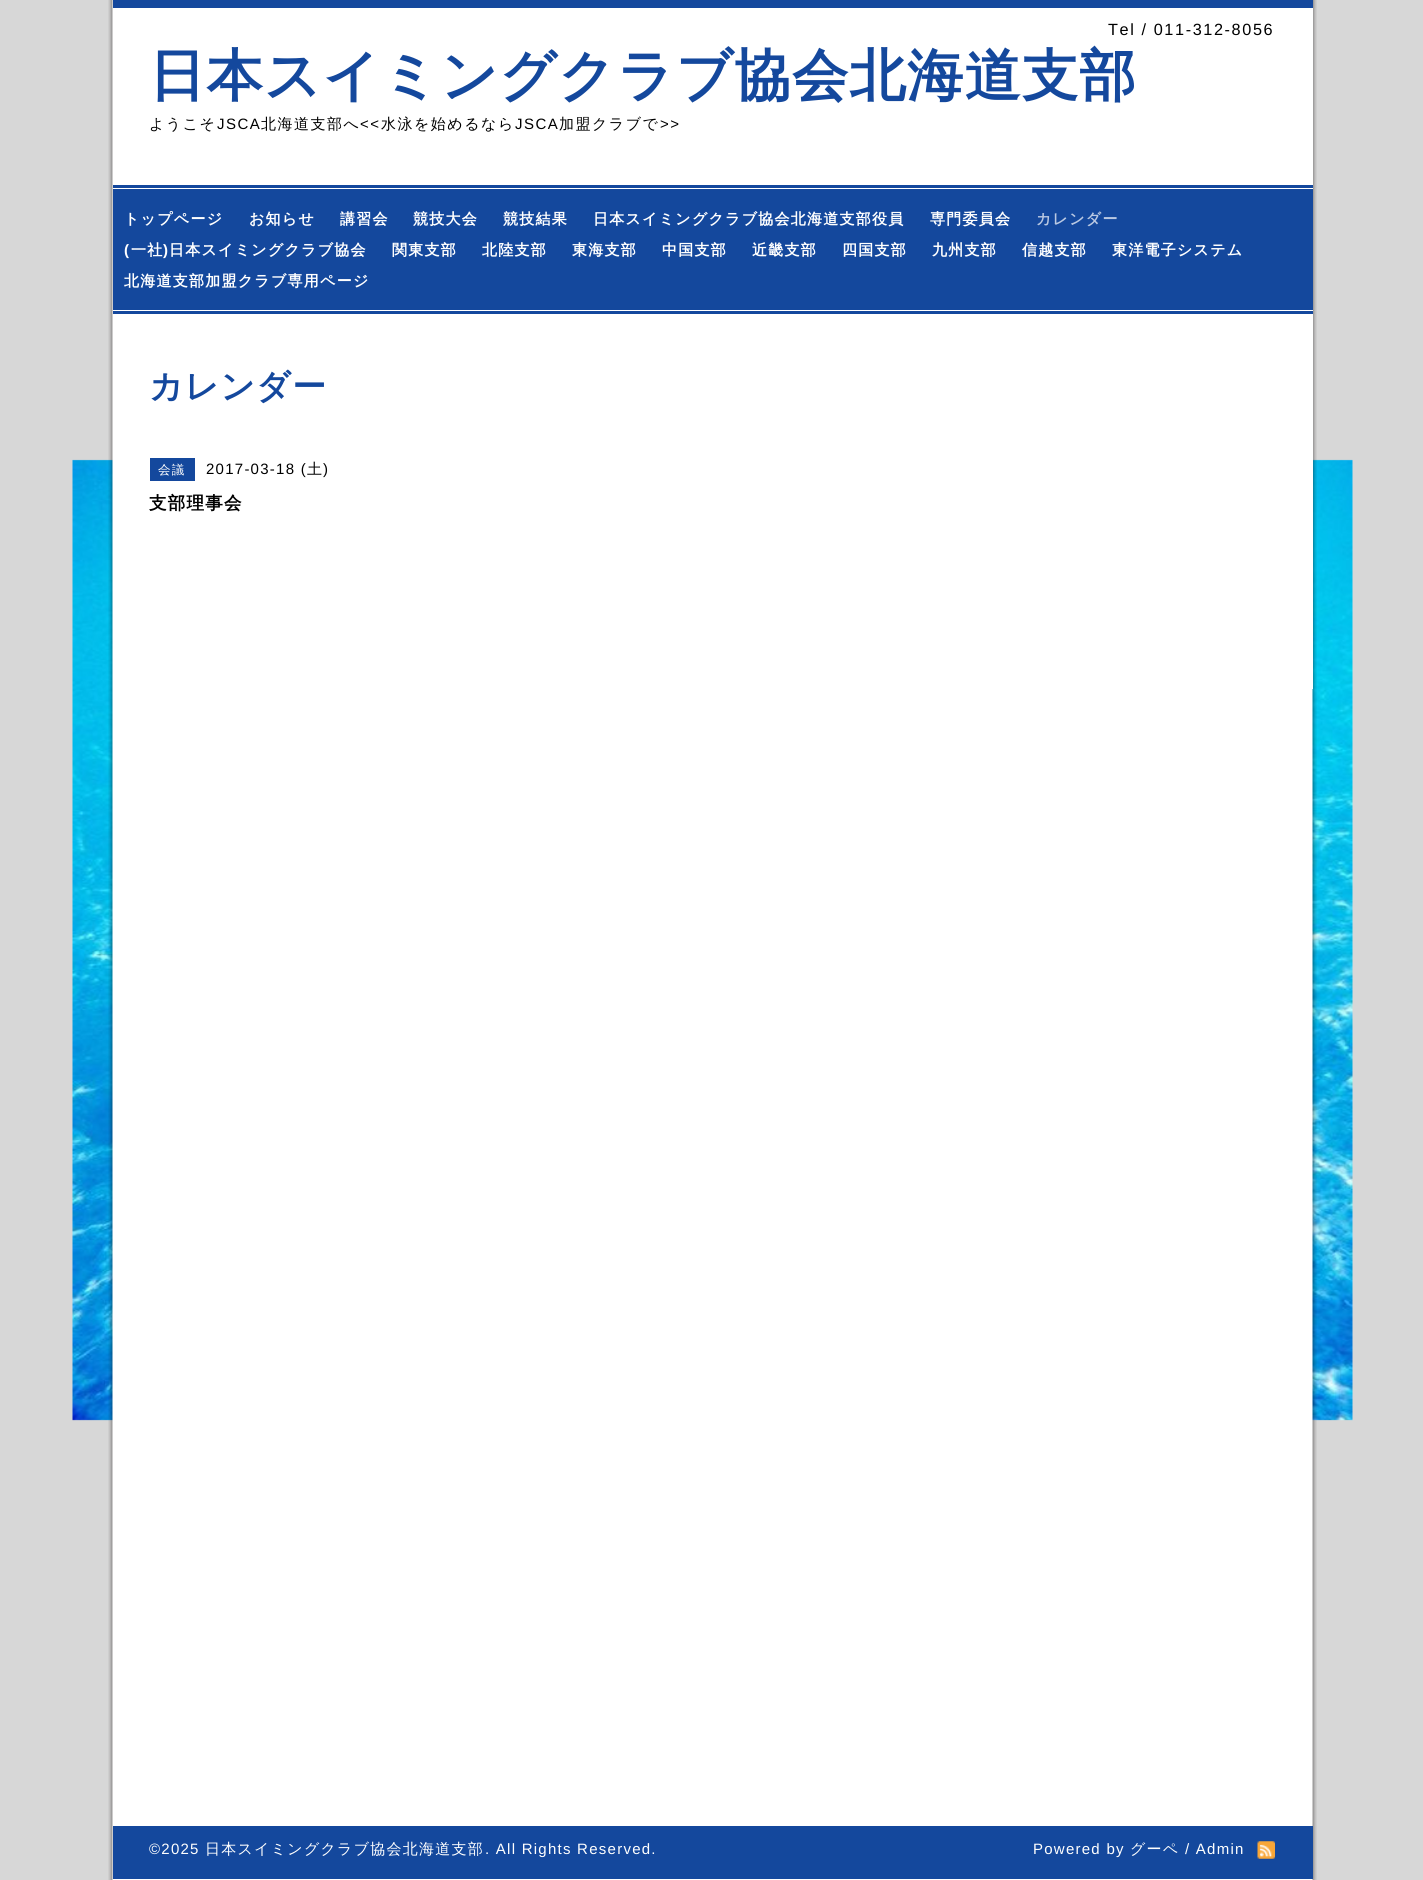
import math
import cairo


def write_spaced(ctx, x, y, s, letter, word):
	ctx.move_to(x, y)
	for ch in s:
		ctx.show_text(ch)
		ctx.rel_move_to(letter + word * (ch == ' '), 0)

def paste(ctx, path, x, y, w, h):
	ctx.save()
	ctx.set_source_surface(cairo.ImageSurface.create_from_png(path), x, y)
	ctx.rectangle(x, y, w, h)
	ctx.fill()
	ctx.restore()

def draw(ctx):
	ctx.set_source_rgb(0.843, 0.843, 0.843)
	ctx.paint()
	paste(ctx, 'media/1.png', 72, 459, 1281, 962)
	paste(ctx, 'media/2.png', 108, 0, 1209, 1880)
	ctx.set_source_rgb(1, 1, 1)
	ctx.rectangle(1312, 8, 1, 681)
	ctx.fill()
	ctx.set_source_rgb(0.082, 0.282, 0.616)
	ctx.rectangle(113, 0, 1200, 8)
	ctx.fill()
	ctx.select_font_face('Liberation Sans')
	ctx.set_font_size(16.25)
	ctx.set_source_rgb(0, 0, 0)
	write_spaced(ctx, 1108, 35, 'Tel / 011-312-8056', 1.6, 0)
	ctx.select_font_face('WenQuanYi Zen Hei', cairo.FONT_SLANT_NORMAL, cairo.FONT_WEIGHT_BOLD)
	ctx.set_font_size(56.25)
	ctx.set_source_rgb(0.082, 0.282, 0.616)
	write_spaced(ctx, 149, 95, '日本スイミングクラブ協会北海道支部', 1.25, 0)
	ctx.select_font_face('WenQuanYi Zen Hei Medium')
	ctx.set_font_size(15)
	ctx.set_source_rgb(0, 0, 0)
	write_spaced(ctx, 149, 129, 'ようこそ', 1.5, 0)
	ctx.select_font_face('Liberation Sans')
	write_spaced(ctx, 217, 129, 'JSCA', 1.5, 0)
	ctx.select_font_face('WenQuanYi Zen Hei Medium')
	write_spaced(ctx, 261, 129, '北海道支部へ', 1.5, 0)
	ctx.select_font_face('Liberation Sans')
	write_spaced(ctx, 360, 129, '<<', 1.5, 0)
	ctx.select_font_face('WenQuanYi Zen Hei Medium')
	write_spaced(ctx, 381, 129, '水泳を始めるなら', 1.5, 0)
	ctx.select_font_face('Liberation Sans')
	write_spaced(ctx, 515, 129, 'JSCA', 1.5, 0)
	ctx.select_font_face('WenQuanYi Zen Hei Medium')
	write_spaced(ctx, 559, 129, '加盟クラブで', 1.5, 0)
	ctx.select_font_face('Liberation Sans')
	write_spaced(ctx, 660, 129, '>>', 1.5, 0)
	ctx.set_source_rgb(0.082, 0.282, 0.616)
	ctx.rectangle(113, 185, 1200, 129)
	ctx.fill()
	ctx.set_source_rgb(1, 1, 1)
	ctx.rectangle(113, 188, 1200, 1)
	ctx.fill()
	ctx.select_font_face('WenQuanYi Zen Hei', cairo.FONT_SLANT_NORMAL, cairo.FONT_WEIGHT_BOLD)
	for x, y, s in [
		(124, 224, 'トップページ'),
		(249, 224, 'お知らせ'),
		(340, 224, '講習会'),
		(413, 224, '競技大会'),
		(503, 224, '競技結果'),
		(593, 224, '日本スイミングクラブ協会北海道支部役員'),
		(930, 224, '専門委員会'),
	]:
		write_spaced(ctx, x, y, s, 1.25, 0)
	ctx.set_source_rgb(0.725, 0.784, 0.886)
	write_spaced(ctx, 1036, 224, 'カレンダー', 1.25, 0)
	ctx.select_font_face('Liberation Sans', cairo.FONT_SLANT_NORMAL, cairo.FONT_WEIGHT_BOLD)
	ctx.set_source_rgb(1, 1, 1)
	write_spaced(ctx, 124, 255, '(', 1.25, 0)
	ctx.select_font_face('WenQuanYi Zen Hei', cairo.FONT_SLANT_NORMAL, cairo.FONT_WEIGHT_BOLD)
	write_spaced(ctx, 131, 255, '一社', 1.25, 0)
	ctx.select_font_face('Liberation Sans', cairo.FONT_SLANT_NORMAL, cairo.FONT_WEIGHT_BOLD)
	write_spaced(ctx, 163, 255, ')', 1.25, 0)
	ctx.select_font_face('WenQuanYi Zen Hei', cairo.FONT_SLANT_NORMAL, cairo.FONT_WEIGHT_BOLD)
	for x, y, s in [
		(169, 255, '日本スイミングクラブ協会'),
		(392, 255, '関東支部'),
		(482, 255, '北陸支部'),
		(572, 255, '東海支部'),
		(662, 255, '中国支部'),
		(752, 255, '近畿支部'),
		(842, 255, '四国支部'),
		(932, 255, '九州支部'),
		(1022, 255, '信越支部'),
		(1112, 255, '東洋電子システム'),
		(124, 286, '北海道支部加盟クラブ専用ページ'),
	]:
		write_spaced(ctx, x, y, s, 1.25, 0)
	ctx.rectangle(113, 310, 1200, 1)
	ctx.fill()
	ctx.set_font_size(33.75)
	ctx.set_source_rgb(0.082, 0.282, 0.616)
	write_spaced(ctx, 149, 398, 'カレンダー', 1.25, 0)
	ctx.rectangle(150, 458, 45, 23)
	ctx.fill()
	ctx.select_font_face('WenQuanYi Zen Hei Medium')
	ctx.set_font_size(12.5)
	ctx.set_source_rgb(1, 1, 1)
	write_spaced(ctx, 158, 474, '会議', 1.25, 0)
	ctx.select_font_face('Liberation Sans')
	ctx.set_font_size(15)
	ctx.set_source_rgb(0, 0, 0)
	write_spaced(ctx, 206, 474, '2017-03-18 (', 1.25, 0)
	ctx.select_font_face('WenQuanYi Zen Hei Medium')
	write_spaced(ctx, 307, 474, '土', 1.25, 0)
	ctx.select_font_face('Liberation Sans')
	write_spaced(ctx, 323, 474, ')', 1.25, 0)
	ctx.select_font_face('WenQuanYi Zen Hei', cairo.FONT_SLANT_NORMAL, cairo.FONT_WEIGHT_BOLD)
	ctx.set_font_size(17.5)
	write_spaced(ctx, 149, 509, '支部理事会', 1.25, 0)
	ctx.set_source_rgb(0.082, 0.282, 0.616)
	ctx.rectangle(113, 1826, 1200, 53)
	ctx.fill()
	ctx.select_font_face('Liberation Sans')
	ctx.set_font_size(15)
	ctx.set_source_rgb(1, 1, 1)
	write_spaced(ctx, 149, 1854, '©2025', 1.25, 0)
	ctx.select_font_face('WenQuanYi Zen Hei Medium')
	write_spaced(ctx, 205, 1854, '日本スイミングクラブ協会北海道支部', 1.25, 0)
	ctx.select_font_face('Liberation Sans')
	write_spaced(ctx, 485, 1854, '. All Rights Reserved.', 1.25, 0)
	write_spaced(ctx, 1033, 1854, 'Powered by', 1.25, 0)
	ctx.select_font_face('WenQuanYi Zen Hei Medium')
	write_spaced(ctx, 1130, 1854, 'グーペ', 1.25, 0)
	ctx.select_font_face('Liberation Sans')
	write_spaced(ctx, 1185, 1854, '/ Admin', 1.25, 0)
	paste(ctx, 'media/3.png', 1257, 1841, 18, 18)


surface = cairo.ImageSurface(cairo.FORMAT_RGB24, 1423, 1880)
ctx = cairo.Context(surface)
options = cairo.FontOptions()
options.set_hint_metrics(cairo.HINT_METRICS_OFF)
options.set_hint_style(cairo.HINT_STYLE_NONE)
ctx.set_font_options(options)
ctx.set_miter_limit(4)
draw(ctx)
surface.write_to_png('image.png')
